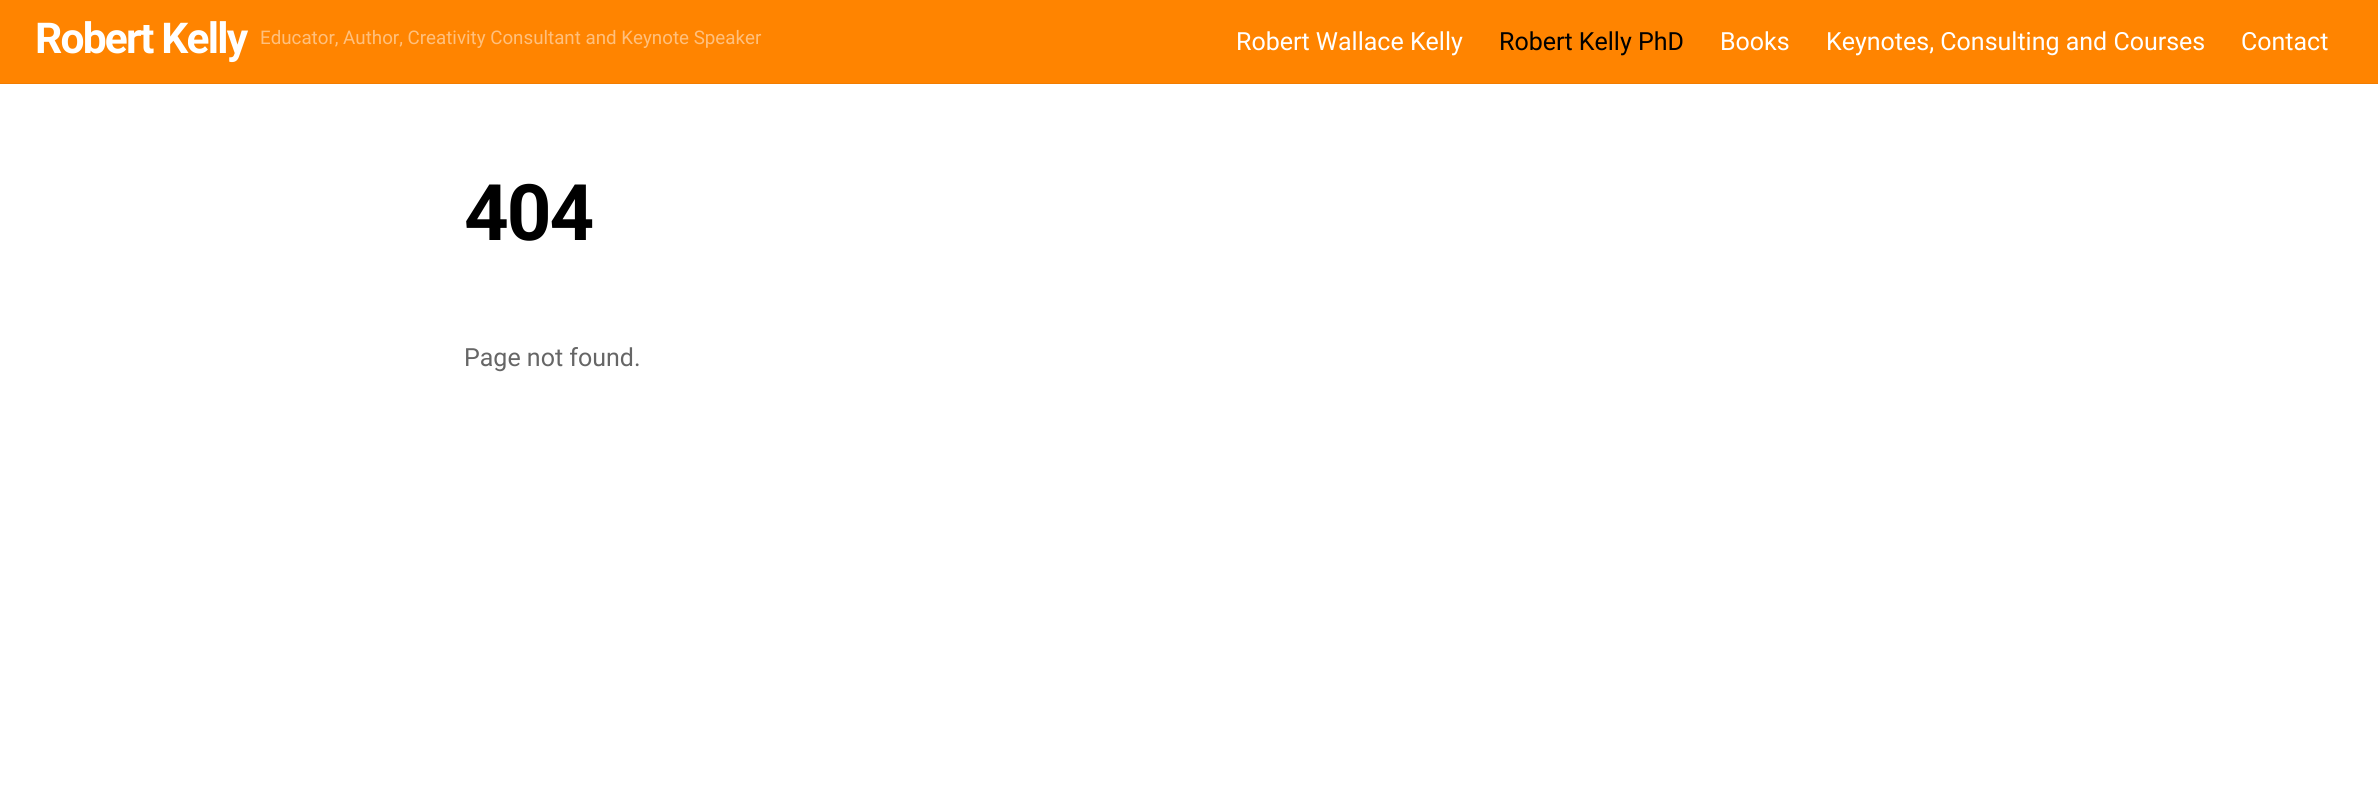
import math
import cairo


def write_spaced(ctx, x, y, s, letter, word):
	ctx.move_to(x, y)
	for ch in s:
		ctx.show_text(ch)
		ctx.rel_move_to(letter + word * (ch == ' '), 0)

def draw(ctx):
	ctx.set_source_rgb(1, 1, 1)
	ctx.paint()
	ctx.set_source_rgb(1, 0.518, 0)
	ctx.rectangle(0, 0, 2378, 83)
	ctx.fill()
	ctx.set_source_rgb(0.949, 0.49, 0)
	ctx.rectangle(0, 83, 2378, 1)
	ctx.fill()
	ctx.select_font_face('Roboto', cairo.FONT_SLANT_NORMAL, cairo.FONT_WEIGHT_BOLD)
	ctx.set_font_size(42.5)
	ctx.set_source_rgb(1, 1, 1)
	write_spaced(ctx, 35, 53, 'Robert Kelly', -1.75, 0)
	ctx.select_font_face('Roboto')
	ctx.set_font_size(18.75)
	ctx.set_source_rgb(1, 0.753, 0.49)
	ctx.move_to(260, 44)
	ctx.show_text('Educator, Author, Creativity Consultant and Keynote Speaker')
	ctx.set_font_size(25)
	ctx.set_source_rgb(1, 1, 1)
	ctx.move_to(1236, 50)
	ctx.show_text('Robert Wallace Kelly')
	ctx.set_source_rgb(0, 0, 0)
	ctx.move_to(1499, 50)
	ctx.show_text('Robert Kelly PhD')
	ctx.set_source_rgb(1, 1, 1)
	for x, y, s in [
		(1720, 50, 'Books'),
		(1826, 50, 'Keynotes, Consulting and Courses'),
		(2241, 50, 'Contact'),
	]:
		ctx.move_to(x, y)
		ctx.show_text(s)
	ctx.select_font_face('Roboto', cairo.FONT_SLANT_NORMAL, cairo.FONT_WEIGHT_BOLD)
	ctx.set_font_size(78)
	ctx.set_source_rgb(0, 0, 0)
	write_spaced(ctx, 464, 240, '404', -2, 0)
	ctx.select_font_face('Roboto')
	ctx.set_font_size(25)
	ctx.set_source_rgb(0.4, 0.4, 0.4)
	ctx.move_to(464, 366)
	ctx.show_text('Page not found.')


surface = cairo.ImageSurface(cairo.FORMAT_RGB24, 2378, 806)
ctx = cairo.Context(surface)
options = cairo.FontOptions()
options.set_hint_metrics(cairo.HINT_METRICS_OFF)
options.set_hint_style(cairo.HINT_STYLE_NONE)
ctx.set_font_options(options)
ctx.set_miter_limit(4)
draw(ctx)
surface.write_to_png('image.png')
